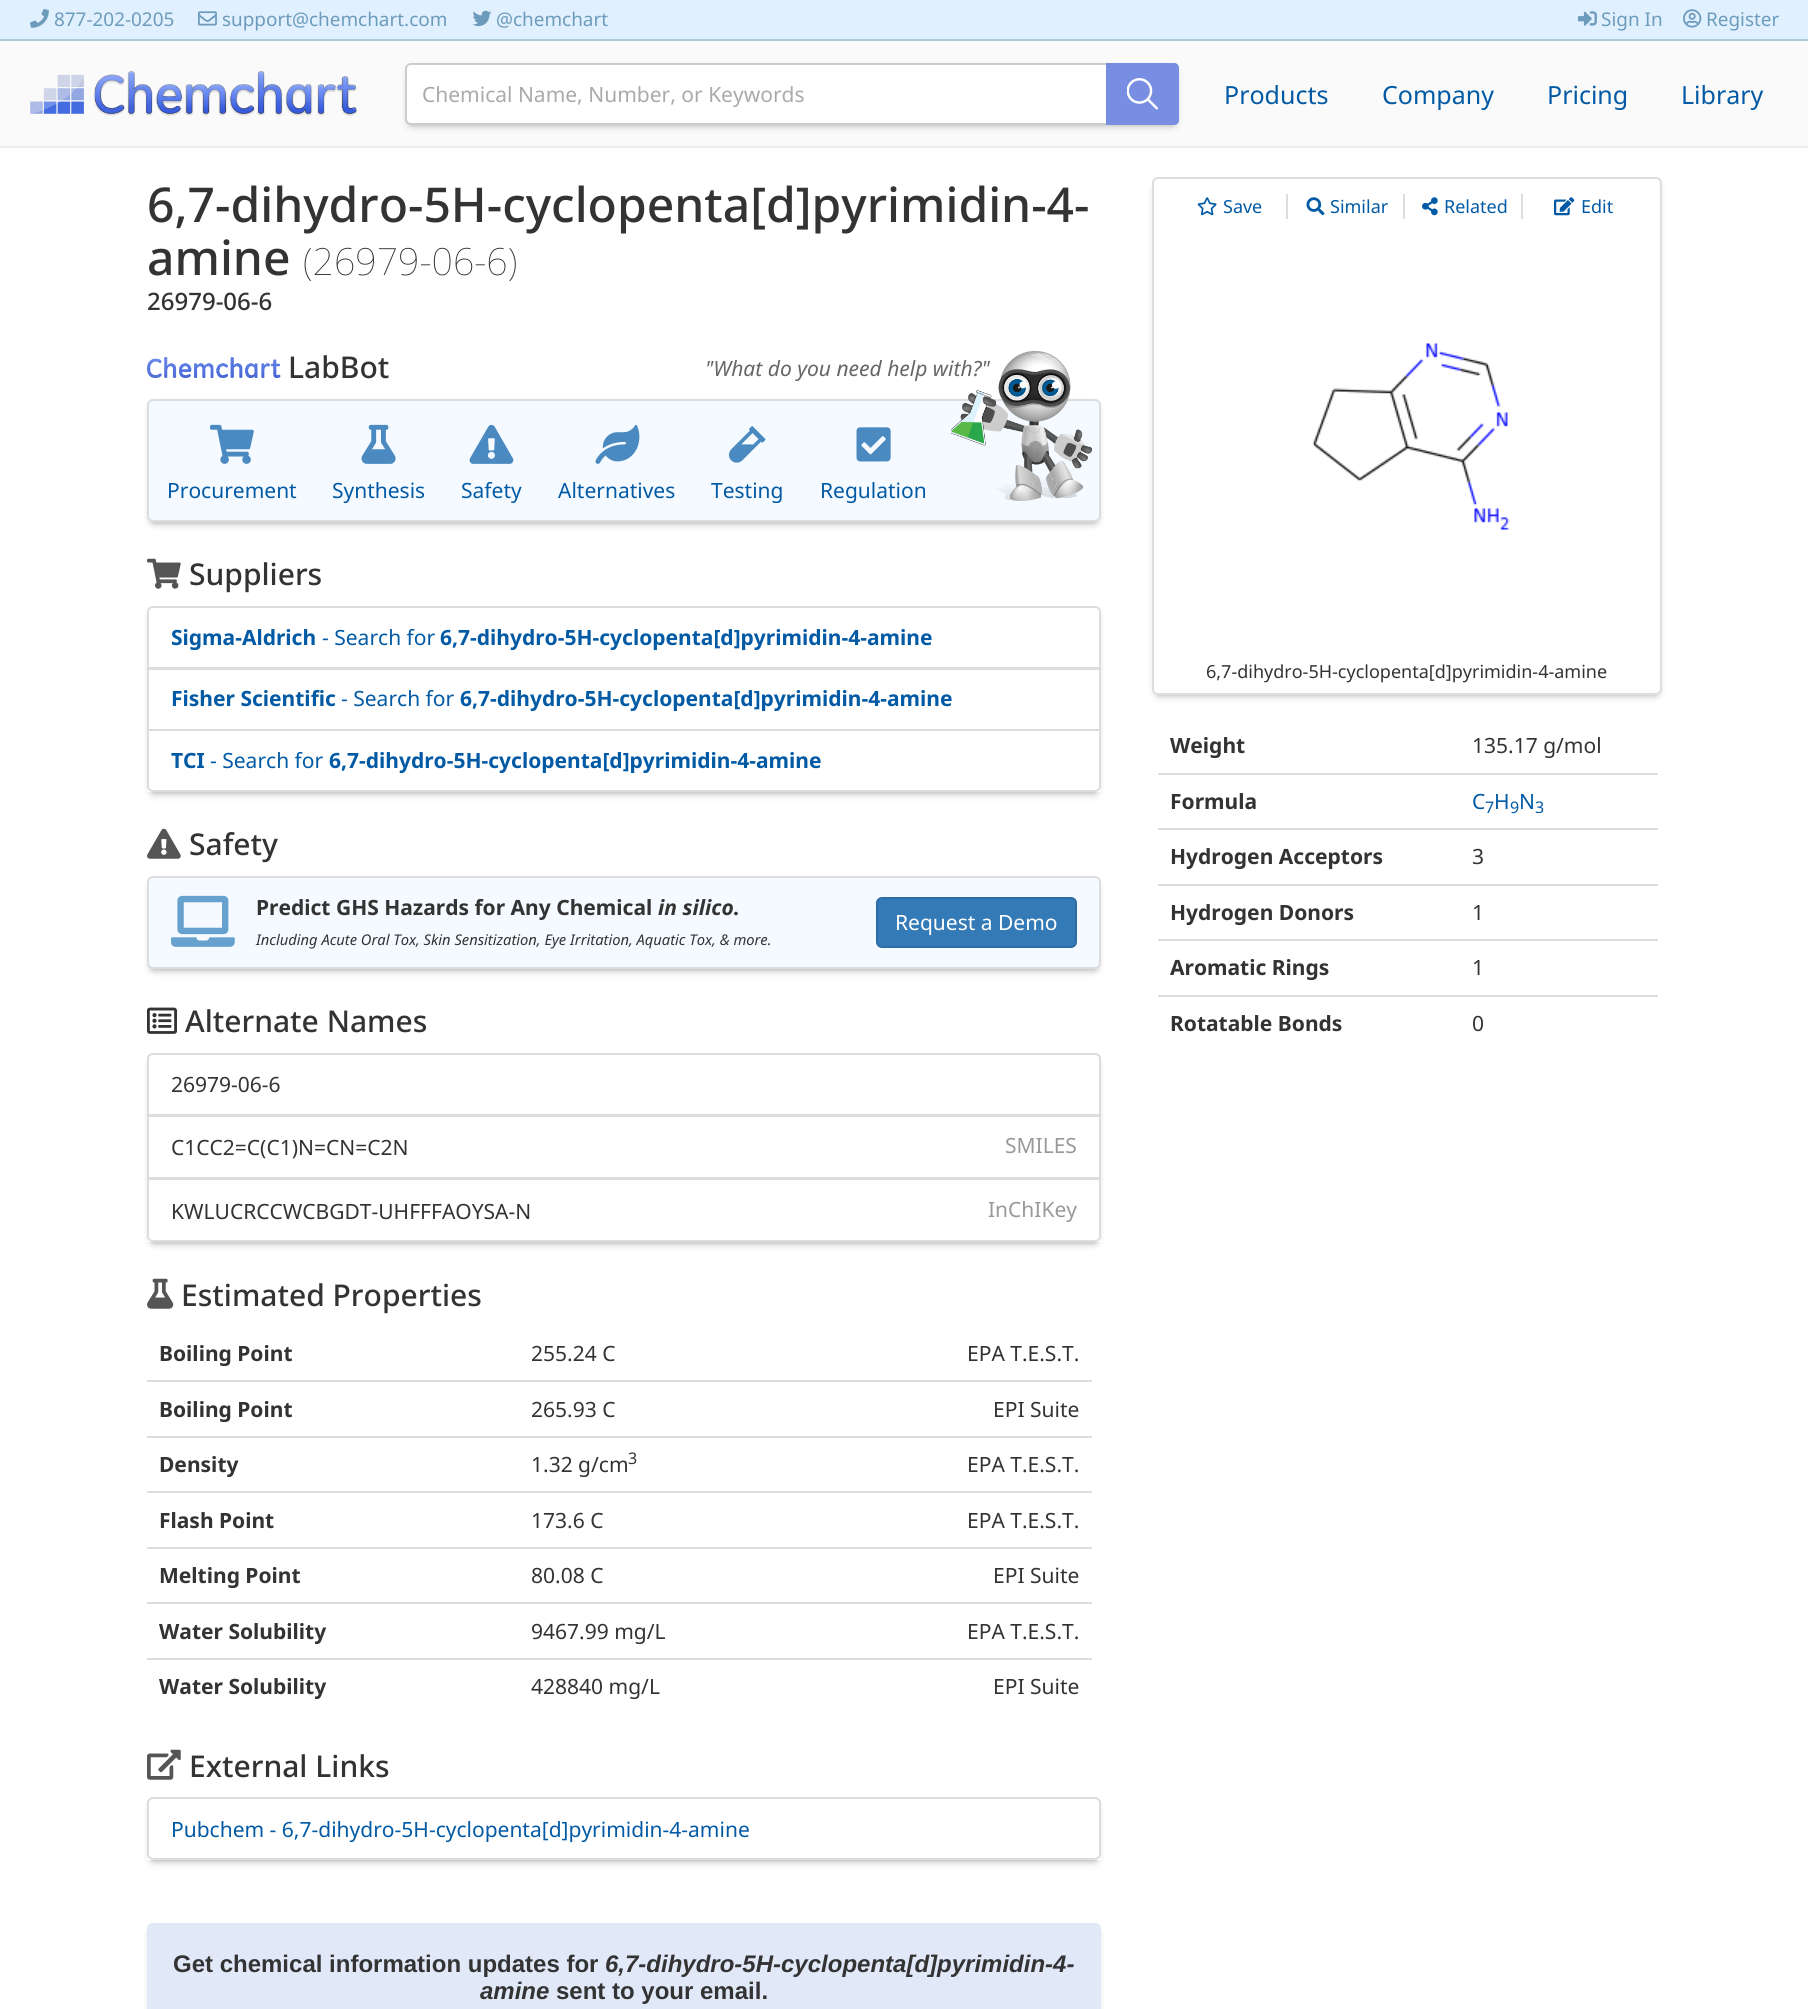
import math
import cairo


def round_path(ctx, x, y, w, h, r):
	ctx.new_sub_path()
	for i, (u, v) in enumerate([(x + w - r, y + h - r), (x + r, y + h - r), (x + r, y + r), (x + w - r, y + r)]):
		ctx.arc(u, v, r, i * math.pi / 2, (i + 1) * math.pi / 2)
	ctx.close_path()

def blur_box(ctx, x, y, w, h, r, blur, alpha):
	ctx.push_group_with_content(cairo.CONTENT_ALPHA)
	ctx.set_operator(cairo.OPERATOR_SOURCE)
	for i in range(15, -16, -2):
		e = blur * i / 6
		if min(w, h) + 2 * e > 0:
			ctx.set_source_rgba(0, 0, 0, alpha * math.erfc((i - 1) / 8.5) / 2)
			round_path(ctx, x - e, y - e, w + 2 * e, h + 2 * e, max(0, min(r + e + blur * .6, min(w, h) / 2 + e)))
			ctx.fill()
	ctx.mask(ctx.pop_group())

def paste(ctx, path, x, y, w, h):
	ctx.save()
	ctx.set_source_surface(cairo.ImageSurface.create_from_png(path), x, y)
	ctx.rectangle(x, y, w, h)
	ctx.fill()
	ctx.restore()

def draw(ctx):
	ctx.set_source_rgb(1, 1, 1)
	ctx.paint()
	ctx.set_source_rgb(0.878, 0.941, 0.996)
	ctx.rectangle(0, 0, 1808, 39)
	ctx.fill()
	ctx.set_source_rgb(0.675, 0.788, 0.871)
	ctx.rectangle(0, 39, 1808, 2)
	ctx.fill()
	paste(ctx, 'media/1.png', 30, 9, 19, 19)
	ctx.select_font_face('Noto Sans')
	ctx.set_font_size(18.9)
	ctx.set_source_rgb(0.427, 0.608, 0.737)
	ctx.move_to(54, 26)
	ctx.show_text('877-202-0205')
	paste(ctx, 'media/2.png', 198, 11, 19, 15)
	ctx.move_to(222, 26)
	ctx.show_text('support@chemchart.com')
	paste(ctx, 'media/3.png', 472, 10, 20, 17)
	ctx.move_to(496, 26)
	ctx.show_text('@chemchart')
	paste(ctx, 'media/4.png', 1578, 11, 19, 15)
	ctx.move_to(1601, 26)
	ctx.show_text('Sign In')
	paste(ctx, 'media/5.png', 1683, 9, 19, 19)
	ctx.move_to(1706, 26)
	ctx.show_text('Register')
	ctx.set_source_rgb(0.98, 0.98, 0.98)
	ctx.rectangle(0, 41, 1808, 105)
	ctx.fill()
	ctx.set_source_rgb(0.922, 0.922, 0.922)
	ctx.rectangle(0, 146, 1808, 2)
	ctx.fill()
	paste(ctx, 'media/6.png', 30, 71, 327, 45)
	ctx.set_source_rgb(0.467, 0.467, 0.467)
	blur_box(ctx, 411, 74, 762, 49, 0, 4.5, 1)
	ctx.set_source_rgb(1, 1, 1)
	round_path(ctx, 406, 64, 772, 60, 5)
	ctx.fill_preserve()
	ctx.set_source_rgb(0.8, 0.8, 0.8)
	ctx.stroke()
	ctx.set_font_size(21)
	ctx.set_source_rgb(0.667, 0.667, 0.667)
	ctx.move_to(422, 102)
	ctx.show_text('Chemical Name, Number, or Keywords')
	ctx.set_source_rgb(0.467, 0.557, 0.89)
	ctx.new_path()
	ctx.move_to(1106, 63)
	ctx.line_to(1174, 63)
	ctx.curve_to(1177, 63, 1179, 65, 1179, 68)
	ctx.line_to(1179, 120)
	ctx.curve_to(1179, 123, 1177, 125, 1174, 125)
	ctx.line_to(1106, 125)
	ctx.close_path()
	ctx.fill()
	paste(ctx, 'media/7.png', 1127, 78, 31, 32)
	ctx.set_font_size(25)
	ctx.set_source_rgb(0.008, 0.353, 0.647)
	for x, y, s in [
		(1224, 104, 'Products'),
		(1382, 104, 'Company'),
		(1547, 104, 'Pricing'),
		(1681, 104, 'Library'),
	]:
		ctx.move_to(x, y)
		ctx.show_text(s)
	ctx.select_font_face('Noto Sans Medium')
	ctx.set_font_size(48)
	ctx.set_source_rgb(0.2, 0.2, 0.2)
	ctx.move_to(147, 222)
	ctx.show_text('6,7-dihydro-5H-cyclopenta[d]pyrimidin-4-')
	ctx.move_to(147, 275)
	ctx.show_text('amine')
	ctx.select_font_face('Noto Sans Thin')
	ctx.set_font_size(37.5)
	ctx.move_to(303, 275)
	ctx.show_text('(26979-06-6)')
	ctx.save()
	ctx.set_fill_rule(cairo.FILL_RULE_EVEN_ODD)
	ctx.new_path()
	ctx.move_to(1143, 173)
	ctx.line_to(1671, 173)
	ctx.line_to(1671, 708)
	ctx.line_to(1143, 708)
	ctx.close_path()
	ctx.move_to(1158, 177)
	ctx.line_to(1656, 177)
	ctx.curve_to(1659.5, 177, 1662, 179.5, 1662, 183)
	ctx.line_to(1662, 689)
	ctx.curve_to(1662, 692.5, 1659.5, 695, 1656, 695)
	ctx.line_to(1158, 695)
	ctx.curve_to(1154.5, 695, 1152, 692.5, 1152, 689)
	ctx.line_to(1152, 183)
	ctx.curve_to(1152, 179.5, 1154.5, 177, 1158, 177)
	ctx.close_path()
	ctx.clip()
	ctx.set_source_rgb(0.467, 0.467, 0.467)
	blur_box(ctx, 1158, 188, 498, 505, 0, 4.5, 1)
	ctx.restore()
	round_path(ctx, 1153, 178, 508, 516, 5)
	ctx.set_source_rgb(0.867, 0.867, 0.867)
	ctx.stroke()
	ctx.rectangle(1286, 194, 2, 25)
	ctx.fill()
	paste(ctx, 'media/8.png', 1197, 197, 20, 19)
	ctx.select_font_face('Noto Sans')
	ctx.set_font_size(18)
	ctx.set_source_rgb(0.008, 0.353, 0.647)
	ctx.move_to(1223, 213)
	ctx.show_text('Save')
	ctx.set_source_rgb(0.867, 0.867, 0.867)
	ctx.rectangle(1403, 194, 2, 25)
	ctx.fill()
	paste(ctx, 'media/9.png', 1306, 197, 19, 19)
	ctx.set_source_rgb(0.008, 0.353, 0.647)
	ctx.move_to(1330, 213)
	ctx.show_text('Similar')
	ctx.set_source_rgb(0.867, 0.867, 0.867)
	ctx.rectangle(1521, 194, 2, 25)
	ctx.fill()
	paste(ctx, 'media/10.png', 1422, 197, 16, 19)
	ctx.set_source_rgb(0.008, 0.353, 0.647)
	ctx.move_to(1444, 213)
	ctx.show_text('Related')
	paste(ctx, 'media/11.png', 1554, 197, 21, 19)
	ctx.move_to(1581, 213)
	ctx.show_text('Edit')
	paste(ctx, 'media/12.png', 1312, 343, 198, 187)
	ctx.set_source_rgb(0.2, 0.2, 0.2)
	ctx.move_to(1206, 678)
	ctx.show_text('6,7-dihydro-5H-cyclopenta[d]pyrimidin-4-amine')
	ctx.select_font_face('Noto Sans', cairo.FONT_SLANT_NORMAL, cairo.FONT_WEIGHT_BOLD)
	ctx.set_font_size(21)
	ctx.move_to(1170, 753)
	ctx.show_text('Weight')
	ctx.select_font_face('Noto Sans')
	ctx.move_to(1472, 753)
	ctx.show_text('135.17 g/mol')
	ctx.select_font_face('Noto Sans', cairo.FONT_SLANT_NORMAL, cairo.FONT_WEIGHT_BOLD)
	ctx.move_to(1170, 809)
	ctx.show_text('Formula')
	ctx.set_source_rgb(0.867, 0.867, 0.867)
	ctx.rectangle(1158, 773, 500, 2)
	ctx.fill()
	ctx.select_font_face('Noto Sans')
	ctx.set_source_rgb(0.008, 0.353, 0.647)
	ctx.move_to(1472, 809)
	ctx.show_text('C')
	ctx.set_font_size(16)
	ctx.move_to(1485, 813)
	ctx.show_text('7')
	ctx.set_font_size(21)
	ctx.move_to(1494, 809)
	ctx.show_text('H')
	ctx.set_font_size(16)
	ctx.move_to(1510, 813)
	ctx.show_text('9')
	ctx.set_font_size(21)
	ctx.move_to(1519, 809)
	ctx.show_text('N')
	ctx.set_font_size(16)
	ctx.move_to(1535, 813)
	ctx.show_text('3')
	ctx.select_font_face('Noto Sans', cairo.FONT_SLANT_NORMAL, cairo.FONT_WEIGHT_BOLD)
	ctx.set_font_size(21)
	ctx.set_source_rgb(0.2, 0.2, 0.2)
	ctx.move_to(1170, 864)
	ctx.show_text('Hydrogen Acceptors')
	ctx.set_source_rgb(0.867, 0.867, 0.867)
	ctx.rectangle(1158, 828, 500, 2)
	ctx.fill()
	ctx.select_font_face('Noto Sans')
	ctx.set_source_rgb(0.2, 0.2, 0.2)
	ctx.move_to(1472, 864)
	ctx.show_text('3')
	ctx.select_font_face('Noto Sans', cairo.FONT_SLANT_NORMAL, cairo.FONT_WEIGHT_BOLD)
	ctx.move_to(1170, 920)
	ctx.show_text('Hydrogen Donors')
	ctx.set_source_rgb(0.867, 0.867, 0.867)
	ctx.rectangle(1158, 884, 500, 2)
	ctx.fill()
	ctx.select_font_face('Noto Sans')
	ctx.set_source_rgb(0.2, 0.2, 0.2)
	ctx.move_to(1472, 920)
	ctx.show_text('1')
	ctx.select_font_face('Noto Sans', cairo.FONT_SLANT_NORMAL, cairo.FONT_WEIGHT_BOLD)
	ctx.move_to(1170, 975)
	ctx.show_text('Aromatic Rings')
	ctx.set_source_rgb(0.867, 0.867, 0.867)
	ctx.rectangle(1158, 939, 500, 2)
	ctx.fill()
	ctx.select_font_face('Noto Sans')
	ctx.set_source_rgb(0.2, 0.2, 0.2)
	ctx.move_to(1472, 975)
	ctx.show_text('1')
	ctx.select_font_face('Noto Sans', cairo.FONT_SLANT_NORMAL, cairo.FONT_WEIGHT_BOLD)
	ctx.move_to(1170, 1031)
	ctx.show_text('Rotatable Bonds')
	ctx.set_source_rgb(0.867, 0.867, 0.867)
	ctx.rectangle(1158, 995, 500, 2)
	ctx.fill()
	ctx.select_font_face('Noto Sans')
	ctx.set_source_rgb(0.2, 0.2, 0.2)
	ctx.move_to(1472, 1031)
	ctx.show_text('0')
	ctx.select_font_face('Noto Sans Medium')
	ctx.set_font_size(24)
	ctx.move_to(147, 310)
	ctx.show_text('26979-06-6')
	paste(ctx, 'media/13.png', 147, 357, 134, 21)
	ctx.set_font_size(30)
	ctx.move_to(288, 378)
	ctx.show_text('LabBot')
	ctx.set_source_rgb(0.467, 0.467, 0.467)
	blur_box(ctx, 153, 410, 942, 111, 0, 4.5, 1)
	ctx.set_source_rgb(0.957, 0.98, 1)
	round_path(ctx, 148, 400, 952, 121, 5)
	ctx.fill_preserve()
	ctx.set_source_rgb(0.867, 0.867, 0.867)
	ctx.stroke()
	paste(ctx, 'media/14.png', 951, 351, 141, 150)
	ctx.select_font_face('Noto Sans', cairo.FONT_SLANT_ITALIC)
	ctx.set_font_size(21)
	ctx.set_source_rgb(0.4, 0.4, 0.4)
	ctx.move_to(705, 376)
	ctx.show_text('"What do you need help with?"')
	paste(ctx, 'media/15.png', 210, 424, 44, 40)
	ctx.select_font_face('Noto Sans')
	ctx.set_source_rgb(0.008, 0.353, 0.647)
	ctx.move_to(167, 498)
	ctx.show_text('Procurement')
	paste(ctx, 'media/16.png', 361, 424, 35, 40)
	ctx.move_to(332, 498)
	ctx.show_text('Synthesis')
	paste(ctx, 'media/17.png', 469, 424, 45, 40)
	ctx.move_to(461, 498)
	ctx.show_text('Safety')
	paste(ctx, 'media/18.png', 595, 424, 45, 40)
	ctx.move_to(558, 498)
	ctx.show_text('Alternatives')
	paste(ctx, 'media/19.png', 729, 426, 37, 37)
	ctx.move_to(711, 498)
	ctx.show_text('Testing')
	paste(ctx, 'media/20.png', 856, 427, 35, 35)
	ctx.move_to(820, 498)
	ctx.show_text('Regulation')
	paste(ctx, 'media/21.png', 147, 558, 34, 31)
	ctx.select_font_face('Noto Sans Medium')
	ctx.set_font_size(30)
	ctx.set_source_rgb(0.2, 0.2, 0.2)
	ctx.move_to(189, 585)
	ctx.show_text('Suppliers')
	ctx.save()
	ctx.set_fill_rule(cairo.FILL_RULE_EVEN_ODD)
	ctx.new_path()
	ctx.move_to(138, 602)
	ctx.line_to(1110, 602)
	ctx.line_to(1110, 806)
	ctx.line_to(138, 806)
	ctx.close_path()
	ctx.move_to(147, 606)
	ctx.line_to(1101, 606)
	ctx.line_to(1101, 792)
	ctx.line_to(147, 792)
	ctx.close_path()
	ctx.clip()
	ctx.set_source_rgb(0.467, 0.467, 0.467)
	blur_box(ctx, 153, 617, 942, 174, 0, 4.5, 1)
	ctx.restore()
	ctx.new_path()
	ctx.move_to(153, 607)
	ctx.line_to(1095, 607)
	ctx.curve_to(1098, 607, 1100, 609, 1100, 612)
	ctx.line_to(1100, 668)
	ctx.line_to(148, 668)
	ctx.line_to(148, 612)
	ctx.curve_to(148, 609, 150, 607, 153, 607)
	ctx.close_path()
	ctx.set_source_rgb(0.867, 0.867, 0.867)
	ctx.stroke()
	ctx.select_font_face('Noto Sans', cairo.FONT_SLANT_NORMAL, cairo.FONT_WEIGHT_BOLD)
	ctx.set_font_size(21)
	ctx.set_source_rgb(0.008, 0.353, 0.647)
	ctx.move_to(171, 645)
	ctx.show_text('Sigma-Aldrich')
	ctx.select_font_face('Noto Sans')
	ctx.move_to(322, 645)
	ctx.show_text('- Search for')
	ctx.select_font_face('Noto Sans', cairo.FONT_SLANT_NORMAL, cairo.FONT_WEIGHT_BOLD)
	ctx.move_to(440, 645)
	ctx.show_text('6,7-dihydro-5H-cyclopenta[d]pyrimidin-4-amine')
	ctx.rectangle(148, 669, 952, 61)
	ctx.set_source_rgb(0.867, 0.867, 0.867)
	ctx.stroke()
	ctx.set_source_rgb(0.008, 0.353, 0.647)
	ctx.move_to(171, 706)
	ctx.show_text('Fisher Scientific')
	ctx.select_font_face('Noto Sans')
	ctx.move_to(341, 706)
	ctx.show_text('- Search for')
	ctx.select_font_face('Noto Sans', cairo.FONT_SLANT_NORMAL, cairo.FONT_WEIGHT_BOLD)
	ctx.move_to(460, 706)
	ctx.show_text('6,7-dihydro-5H-cyclopenta[d]pyrimidin-4-amine')
	ctx.set_source_rgb(1, 1, 1)
	ctx.new_path()
	ctx.move_to(148, 730)
	ctx.line_to(1100, 730)
	ctx.line_to(1100, 786)
	ctx.curve_to(1100, 789, 1098, 791, 1095, 791)
	ctx.line_to(153, 791)
	ctx.curve_to(150, 791, 148, 789, 148, 786)
	ctx.close_path()
	ctx.fill_preserve()
	ctx.set_source_rgb(0.867, 0.867, 0.867)
	ctx.stroke()
	ctx.set_source_rgb(0.008, 0.353, 0.647)
	ctx.move_to(171, 768)
	ctx.show_text('TCI')
	ctx.select_font_face('Noto Sans')
	ctx.move_to(210, 768)
	ctx.show_text('- Search for')
	ctx.select_font_face('Noto Sans', cairo.FONT_SLANT_NORMAL, cairo.FONT_WEIGHT_BOLD)
	ctx.move_to(329, 768)
	ctx.show_text('6,7-dihydro-5H-cyclopenta[d]pyrimidin-4-amine')
	paste(ctx, 'media/22.png', 147, 828, 34, 31)
	ctx.select_font_face('Noto Sans Medium')
	ctx.set_font_size(30)
	ctx.set_source_rgb(0.2, 0.2, 0.2)
	ctx.move_to(189, 855)
	ctx.show_text('Safety')
	ctx.set_source_rgb(0.467, 0.467, 0.467)
	blur_box(ctx, 153, 887, 942, 81, 0, 4.5, 1)
	ctx.set_source_rgb(0.957, 0.98, 1)
	round_path(ctx, 148, 877, 952, 91, 5)
	ctx.fill_preserve()
	ctx.set_source_rgb(0.867, 0.867, 0.867)
	ctx.stroke()
	paste(ctx, 'media/23.png', 171, 895, 64, 52)
	ctx.select_font_face('Noto Sans', cairo.FONT_SLANT_NORMAL, cairo.FONT_WEIGHT_BOLD)
	ctx.set_font_size(21)
	ctx.set_source_rgb(0.2, 0.2, 0.2)
	ctx.move_to(256, 915)
	ctx.show_text('Predict GHS Hazards for Any Chemical')
	ctx.select_font_face('Noto Sans', cairo.FONT_SLANT_ITALIC, cairo.FONT_WEIGHT_BOLD)
	ctx.move_to(658, 915)
	ctx.show_text('in silico')
	ctx.select_font_face('Noto Sans', cairo.FONT_SLANT_NORMAL, cairo.FONT_WEIGHT_BOLD)
	ctx.move_to(733, 915)
	ctx.show_text('.')
	ctx.set_source_rgb(0.2, 0.478, 0.718)
	round_path(ctx, 877, 898, 199, 49, 5)
	ctx.fill_preserve()
	ctx.set_source_rgb(0.18, 0.427, 0.643)
	ctx.stroke()
	ctx.select_font_face('Noto Sans')
	ctx.set_source_rgb(1, 1, 1)
	ctx.move_to(895, 930)
	ctx.show_text('Request a Demo')
	ctx.select_font_face('Noto Sans', cairo.FONT_SLANT_ITALIC)
	ctx.set_font_size(14.7)
	ctx.set_source_rgb(0.2, 0.2, 0.2)
	ctx.move_to(256, 945)
	ctx.show_text('Including Acute Oral Tox, Skin Sensitization, Eye Irritation, Aquatic Tox, & more.')
	paste(ctx, 'media/24.png', 147, 1007, 30, 27)
	ctx.select_font_face('Noto Sans Medium')
	ctx.set_font_size(30)
	ctx.move_to(185, 1032)
	ctx.show_text('Alternate Names')
	ctx.save()
	ctx.set_fill_rule(cairo.FILL_RULE_EVEN_ODD)
	ctx.new_path()
	ctx.move_to(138, 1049)
	ctx.line_to(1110, 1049)
	ctx.line_to(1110, 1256)
	ctx.line_to(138, 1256)
	ctx.close_path()
	ctx.move_to(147, 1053)
	ctx.line_to(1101, 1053)
	ctx.line_to(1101, 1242)
	ctx.line_to(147, 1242)
	ctx.close_path()
	ctx.clip()
	ctx.set_source_rgb(0.467, 0.467, 0.467)
	blur_box(ctx, 153, 1064, 942, 177, 0, 4.5, 1)
	ctx.restore()
	ctx.new_path()
	ctx.move_to(153, 1054)
	ctx.line_to(1095, 1054)
	ctx.curve_to(1098, 1054, 1100, 1056, 1100, 1059)
	ctx.line_to(1100, 1115)
	ctx.line_to(148, 1115)
	ctx.line_to(148, 1059)
	ctx.curve_to(148, 1056, 150, 1054, 153, 1054)
	ctx.close_path()
	ctx.set_source_rgb(0.867, 0.867, 0.867)
	ctx.stroke()
	ctx.select_font_face('Noto Sans')
	ctx.set_font_size(21)
	ctx.set_source_rgb(0.2, 0.2, 0.2)
	ctx.move_to(171, 1092)
	ctx.show_text('26979-06-6')
	ctx.rectangle(148, 1116, 952, 62)
	ctx.set_source_rgb(0.867, 0.867, 0.867)
	ctx.stroke()
	ctx.set_source_rgb(0.2, 0.2, 0.2)
	ctx.move_to(171, 1155)
	ctx.show_text('C1CC2=C(C1)N=CN=C2N')
	ctx.set_source_rgb(0.6, 0.6, 0.6)
	ctx.move_to(1005, 1153)
	ctx.show_text('SMILES')
	ctx.set_source_rgb(1, 1, 1)
	ctx.new_path()
	ctx.move_to(148, 1179)
	ctx.line_to(1100, 1179)
	ctx.line_to(1100, 1236)
	ctx.curve_to(1100, 1239, 1098, 1241, 1095, 1241)
	ctx.line_to(153, 1241)
	ctx.curve_to(150, 1241, 148, 1239, 148, 1236)
	ctx.close_path()
	ctx.fill_preserve()
	ctx.set_source_rgb(0.867, 0.867, 0.867)
	ctx.stroke()
	ctx.set_source_rgb(0.2, 0.2, 0.2)
	ctx.move_to(171, 1219)
	ctx.show_text('KWLUCRCCWCBGDT-UHFFFAOYSA-N')
	ctx.set_source_rgb(0.6, 0.6, 0.6)
	ctx.move_to(988, 1217)
	ctx.show_text('InChIKey')
	paste(ctx, 'media/25.png', 147, 1278, 27, 31)
	ctx.select_font_face('Noto Sans Medium')
	ctx.set_font_size(30)
	ctx.set_source_rgb(0.2, 0.2, 0.2)
	ctx.move_to(181, 1306)
	ctx.show_text('Estimated Properties')
	ctx.select_font_face('Noto Sans', cairo.FONT_SLANT_NORMAL, cairo.FONT_WEIGHT_BOLD)
	ctx.set_font_size(21)
	ctx.move_to(159, 1361)
	ctx.show_text('Boiling Point')
	ctx.select_font_face('Noto Sans')
	ctx.move_to(531, 1361)
	ctx.show_text('255.24 C')
	ctx.move_to(967, 1361)
	ctx.show_text('EPA T.E.S.T.')
	ctx.select_font_face('Noto Sans', cairo.FONT_SLANT_NORMAL, cairo.FONT_WEIGHT_BOLD)
	ctx.move_to(159, 1417)
	ctx.show_text('Boiling Point')
	ctx.select_font_face('Noto Sans')
	ctx.move_to(531, 1417)
	ctx.show_text('265.93 C')
	ctx.set_source_rgb(0.867, 0.867, 0.867)
	ctx.rectangle(147, 1380, 945, 2)
	ctx.fill()
	ctx.set_source_rgb(0.2, 0.2, 0.2)
	ctx.move_to(993, 1417)
	ctx.show_text('EPI Suite')
	ctx.select_font_face('Noto Sans', cairo.FONT_SLANT_NORMAL, cairo.FONT_WEIGHT_BOLD)
	ctx.move_to(159, 1472)
	ctx.show_text('Density')
	ctx.select_font_face('Noto Sans')
	ctx.move_to(531, 1472)
	ctx.show_text('1.32 g/cm')
	ctx.set_font_size(16)
	ctx.move_to(628, 1464)
	ctx.show_text('3')
	ctx.set_source_rgb(0.867, 0.867, 0.867)
	ctx.rectangle(147, 1436, 945, 2)
	ctx.fill()
	ctx.set_font_size(21)
	ctx.set_source_rgb(0.2, 0.2, 0.2)
	ctx.move_to(967, 1472)
	ctx.show_text('EPA T.E.S.T.')
	ctx.select_font_face('Noto Sans', cairo.FONT_SLANT_NORMAL, cairo.FONT_WEIGHT_BOLD)
	ctx.move_to(159, 1528)
	ctx.show_text('Flash Point')
	ctx.select_font_face('Noto Sans')
	ctx.move_to(531, 1528)
	ctx.show_text('173.6 C')
	ctx.set_source_rgb(0.867, 0.867, 0.867)
	ctx.rectangle(147, 1491, 945, 2)
	ctx.fill()
	ctx.set_source_rgb(0.2, 0.2, 0.2)
	ctx.move_to(967, 1528)
	ctx.show_text('EPA T.E.S.T.')
	ctx.select_font_face('Noto Sans', cairo.FONT_SLANT_NORMAL, cairo.FONT_WEIGHT_BOLD)
	ctx.move_to(159, 1583)
	ctx.show_text('Melting Point')
	ctx.select_font_face('Noto Sans')
	ctx.move_to(531, 1583)
	ctx.show_text('80.08 C')
	ctx.set_source_rgb(0.867, 0.867, 0.867)
	ctx.rectangle(147, 1547, 945, 2)
	ctx.fill()
	ctx.set_source_rgb(0.2, 0.2, 0.2)
	ctx.move_to(993, 1583)
	ctx.show_text('EPI Suite')
	ctx.select_font_face('Noto Sans', cairo.FONT_SLANT_NORMAL, cairo.FONT_WEIGHT_BOLD)
	ctx.move_to(159, 1639)
	ctx.show_text('Water Solubility')
	ctx.select_font_face('Noto Sans')
	ctx.move_to(531, 1639)
	ctx.show_text('9467.99 mg/L')
	ctx.set_source_rgb(0.867, 0.867, 0.867)
	ctx.rectangle(147, 1602, 945, 2)
	ctx.fill()
	ctx.set_source_rgb(0.2, 0.2, 0.2)
	ctx.move_to(967, 1639)
	ctx.show_text('EPA T.E.S.T.')
	ctx.select_font_face('Noto Sans', cairo.FONT_SLANT_NORMAL, cairo.FONT_WEIGHT_BOLD)
	ctx.move_to(159, 1694)
	ctx.show_text('Water Solubility')
	ctx.select_font_face('Noto Sans')
	ctx.move_to(531, 1694)
	ctx.show_text('428840 mg/L')
	ctx.set_source_rgb(0.867, 0.867, 0.867)
	ctx.rectangle(147, 1658, 945, 2)
	ctx.fill()
	ctx.set_source_rgb(0.2, 0.2, 0.2)
	ctx.move_to(993, 1694)
	ctx.show_text('EPI Suite')
	paste(ctx, 'media/26.png', 147, 1749, 34, 31)
	ctx.select_font_face('Noto Sans Medium')
	ctx.set_font_size(30)
	ctx.move_to(189, 1777)
	ctx.show_text('External Links')
	ctx.save()
	ctx.set_fill_rule(cairo.FILL_RULE_EVEN_ODD)
	ctx.new_path()
	ctx.move_to(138, 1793)
	ctx.line_to(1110, 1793)
	ctx.line_to(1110, 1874)
	ctx.line_to(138, 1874)
	ctx.close_path()
	ctx.move_to(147, 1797)
	ctx.line_to(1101, 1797)
	ctx.line_to(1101, 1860)
	ctx.line_to(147, 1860)
	ctx.close_path()
	ctx.clip()
	ctx.set_source_rgb(0.467, 0.467, 0.467)
	blur_box(ctx, 153, 1808, 942, 51, 0, 4.5, 1)
	ctx.restore()
	round_path(ctx, 148, 1798, 952, 61, 5)
	ctx.set_source_rgb(0.867, 0.867, 0.867)
	ctx.stroke()
	ctx.select_font_face('Noto Sans')
	ctx.set_font_size(21)
	ctx.set_source_rgb(0.008, 0.353, 0.647)
	ctx.move_to(171, 1837)
	ctx.show_text('Pubchem - 6,7-dihydro-5H-cyclopenta[d]pyrimidin-4-amine')
	ctx.set_source_rgb(0.467, 0.467, 0.467)
	blur_box(ctx, 153, 1934, 942, 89, 0, 4.5, 1)
	ctx.set_source_rgb(0.882, 0.914, 0.969)
	round_path(ctx, 147, 1923, 954, 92, 6)
	ctx.fill()
	ctx.select_font_face('Liberation Sans', cairo.FONT_SLANT_NORMAL, cairo.FONT_WEIGHT_BOLD)
	ctx.set_font_size(24)
	ctx.set_source_rgb(0.2, 0.2, 0.2)
	ctx.move_to(173, 1972)
	ctx.show_text('Get chemical information updates for')
	ctx.select_font_face('Liberation Sans', cairo.FONT_SLANT_ITALIC, cairo.FONT_WEIGHT_BOLD)
	ctx.move_to(605, 1972)
	ctx.show_text('6,7-dihydro-5H-cyclopenta[d]pyrimidin-4-')
	ctx.move_to(480, 1999)
	ctx.show_text('amine')
	ctx.select_font_face('Liberation Sans', cairo.FONT_SLANT_NORMAL, cairo.FONT_WEIGHT_BOLD)
	ctx.move_to(556, 1999)
	ctx.show_text('sent to your email.')


surface = cairo.ImageSurface(cairo.FORMAT_RGB24, 1808, 2009)
ctx = cairo.Context(surface)
options = cairo.FontOptions()
options.set_hint_metrics(cairo.HINT_METRICS_OFF)
options.set_hint_style(cairo.HINT_STYLE_NONE)
ctx.set_font_options(options)
ctx.set_miter_limit(4)
draw(ctx)
surface.write_to_png('image.png')
